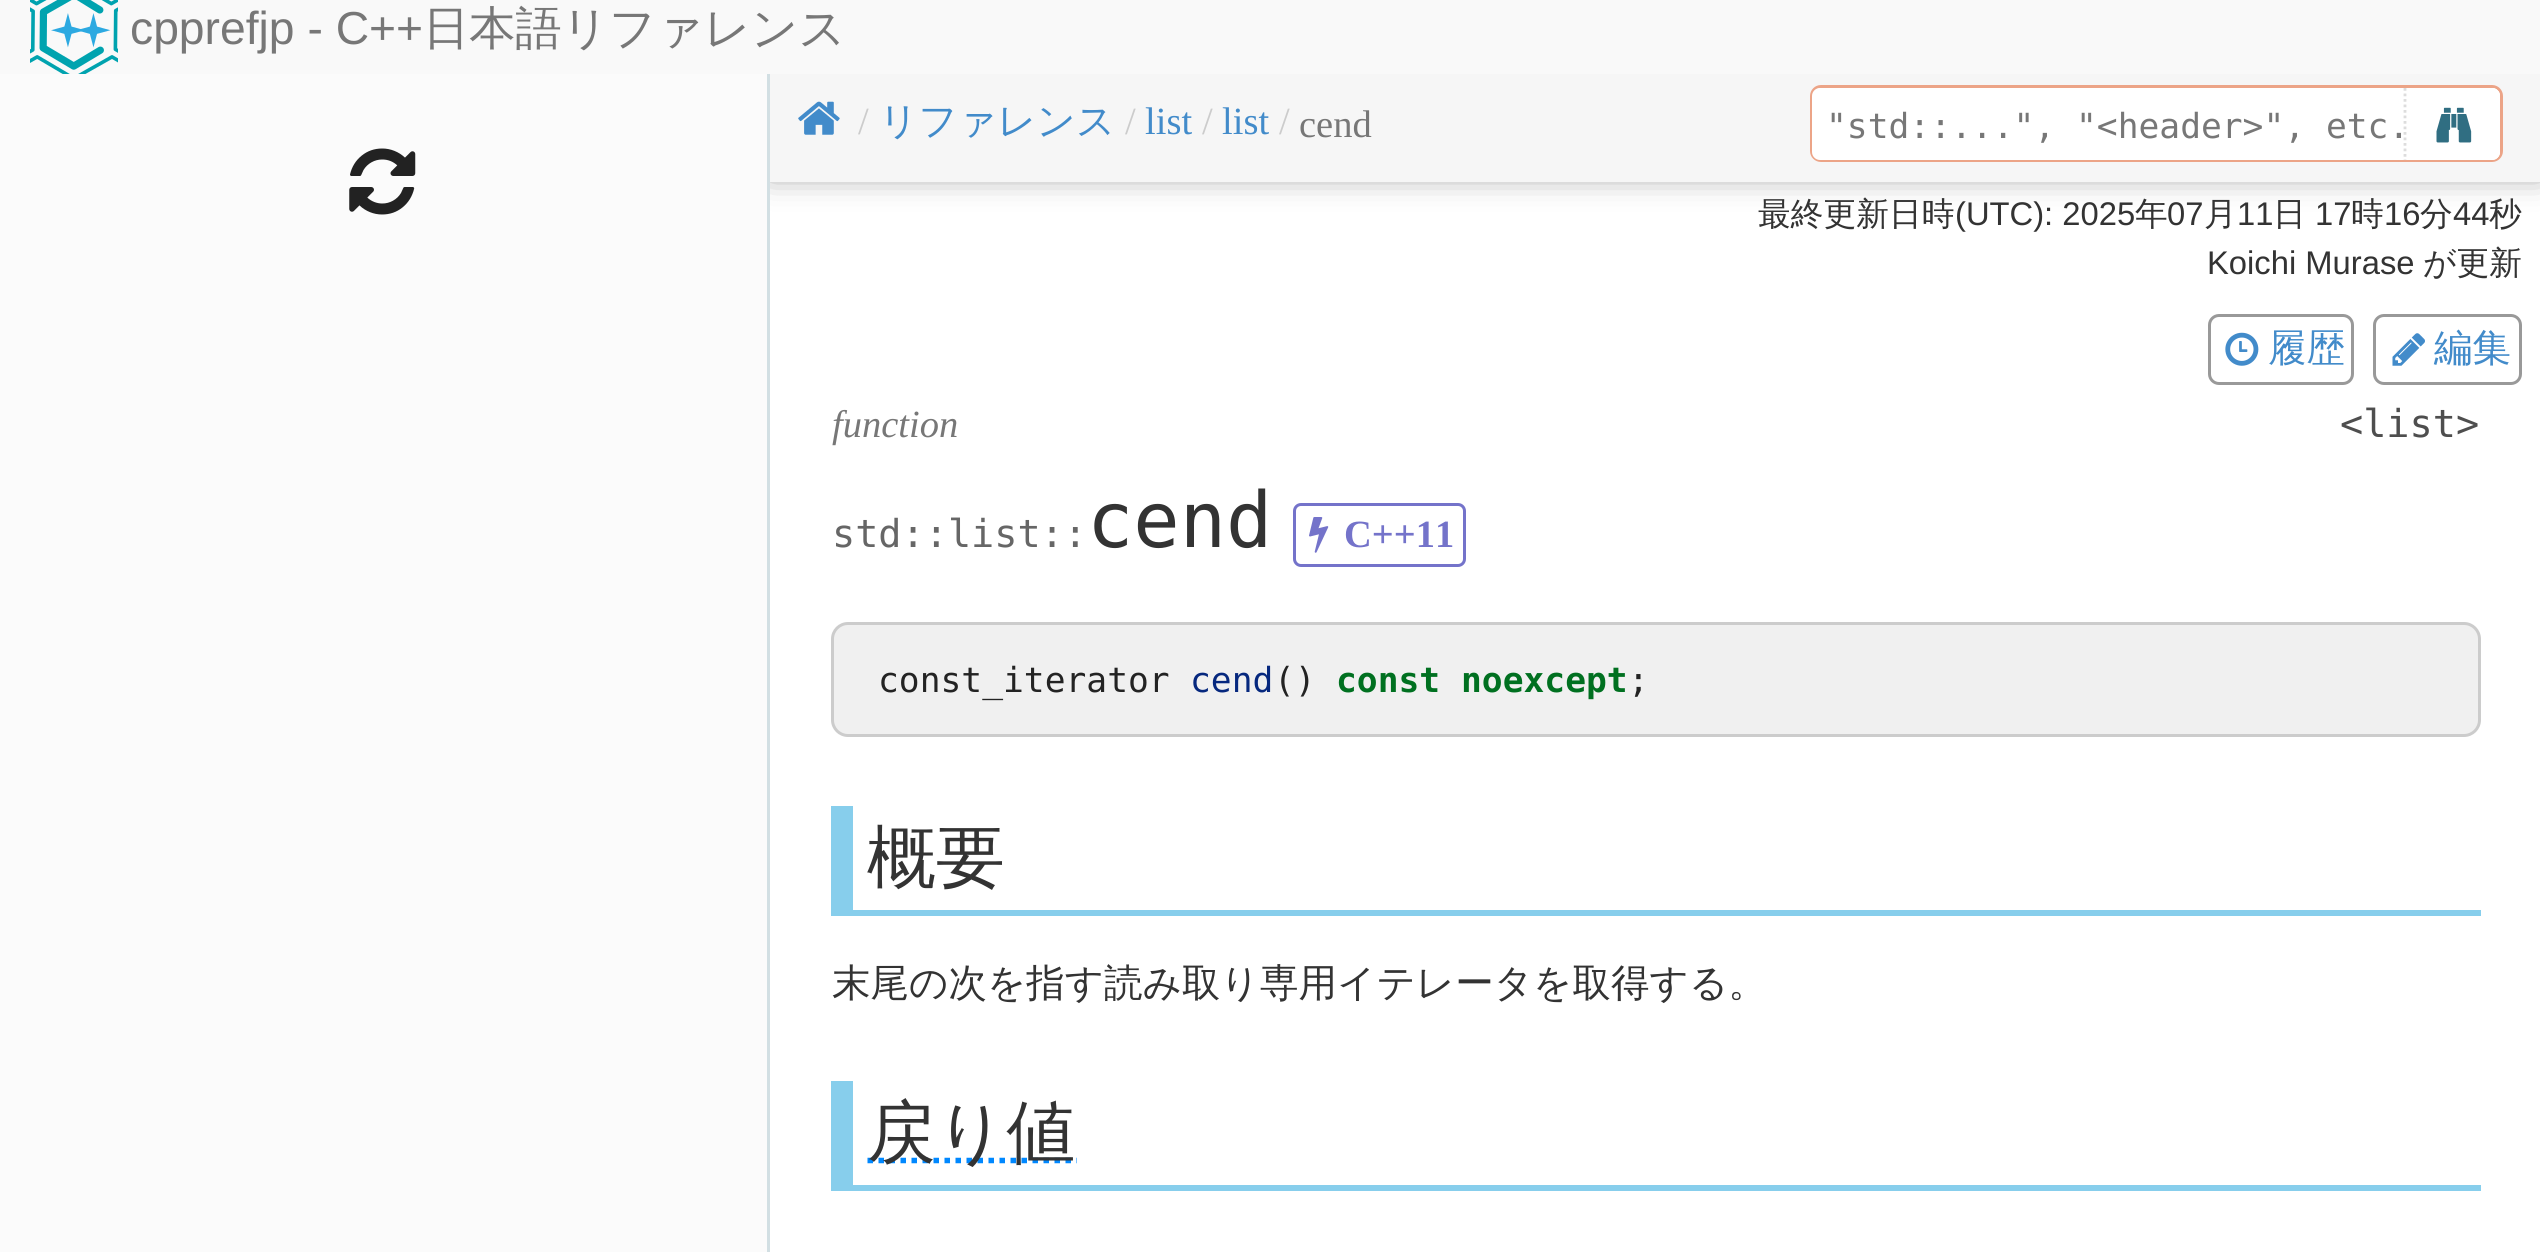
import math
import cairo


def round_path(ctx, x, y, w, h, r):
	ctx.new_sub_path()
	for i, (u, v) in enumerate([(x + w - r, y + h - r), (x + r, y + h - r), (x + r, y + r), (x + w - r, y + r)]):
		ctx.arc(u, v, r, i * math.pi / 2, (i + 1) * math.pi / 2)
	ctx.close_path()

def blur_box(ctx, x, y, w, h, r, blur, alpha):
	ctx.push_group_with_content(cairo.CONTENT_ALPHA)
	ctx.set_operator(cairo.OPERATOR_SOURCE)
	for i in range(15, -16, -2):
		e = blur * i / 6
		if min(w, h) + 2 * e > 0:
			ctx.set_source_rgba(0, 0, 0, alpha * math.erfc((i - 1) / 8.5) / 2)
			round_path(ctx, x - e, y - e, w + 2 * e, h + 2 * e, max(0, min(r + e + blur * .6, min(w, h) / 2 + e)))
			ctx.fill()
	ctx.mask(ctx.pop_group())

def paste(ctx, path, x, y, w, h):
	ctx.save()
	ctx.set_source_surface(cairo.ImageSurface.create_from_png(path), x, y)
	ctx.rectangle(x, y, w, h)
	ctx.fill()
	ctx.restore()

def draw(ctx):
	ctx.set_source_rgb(1, 1, 1)
	ctx.paint()
	ctx.set_source_rgb(0.078, 0.078, 0.078)
	blur_box(ctx, 770, 55, 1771, 116, 0, 16.5, 0.6)
	ctx.set_source_rgb(0.824, 0.875, 0.89)
	ctx.rectangle(767, 66, 3, 1186)
	ctx.fill()
	ctx.set_source_rgb(0.973, 0.973, 0.973)
	ctx.rectangle(0, 0, 2540, 74)
	ctx.fill()
	paste(ctx, 'media/1.png', 30, 0, 88, 74)
	ctx.select_font_face('Liberation Sans')
	ctx.set_font_size(46.25)
	ctx.set_source_rgb(0.467, 0.467, 0.467)
	ctx.move_to(130, 44)
	ctx.show_text('cpprefjp - C++')
	ctx.select_font_face('WenQuanYi Zen Hei Medium')
	ctx.move_to(423, 44)
	ctx.show_text('日本語リファレンス')
	ctx.set_source_rgb(0.984, 0.984, 0.984)
	ctx.rectangle(0, 74, 767, 1178)
	ctx.fill()
	paste(ctx, 'media/2.png', 349, 148, 67, 67)
	ctx.set_source_rgb(0.961, 0.961, 0.961)
	ctx.rectangle(770, 74, 1770, 108)
	ctx.fill()
	paste(ctx, 'media/3.png', 798, 101, 42, 34)
	ctx.select_font_face('Liberation Serif')
	ctx.set_font_size(38.5)
	ctx.set_source_rgb(0.8, 0.8, 0.8)
	ctx.move_to(858, 134)
	ctx.show_text('/')
	ctx.select_font_face('WenQuanYi Zen Hei Medium')
	ctx.set_source_rgb(0.259, 0.545, 0.792)
	ctx.move_to(879, 134)
	ctx.show_text('リファレンス')
	ctx.select_font_face('Liberation Serif')
	ctx.set_source_rgb(0.8, 0.8, 0.8)
	ctx.move_to(1125, 134)
	ctx.show_text('/')
	ctx.set_source_rgb(0.259, 0.545, 0.792)
	ctx.move_to(1145, 134)
	ctx.show_text('list')
	ctx.set_source_rgb(0.8, 0.8, 0.8)
	ctx.move_to(1202, 134)
	ctx.show_text('/')
	ctx.set_source_rgb(0.259, 0.545, 0.792)
	ctx.move_to(1222, 134)
	ctx.show_text('list')
	ctx.set_source_rgb(0.8, 0.8, 0.8)
	ctx.move_to(1279, 134)
	ctx.show_text('/')
	ctx.set_source_rgb(0.467, 0.467, 0.467)
	ctx.move_to(1299, 137)
	ctx.show_text('cend')
	round_path(ctx, 1811.5, 86.5, 690, 74, 9.5)
	ctx.set_source_rgb(0.922, 0.643, 0.529)
	ctx.set_line_width(3)
	ctx.stroke()
	ctx.set_source_rgb(1, 1, 1)
	round_path(ctx, 1812, 88, 688, 72, 8)
	ctx.fill()
	ctx.select_font_face('DejaVu Sans Mono')
	ctx.set_font_size(34.6)
	ctx.set_source_rgb(0.467, 0.467, 0.467)
	ctx.move_to(1826, 138)
	ctx.show_text('"std::...", "<header>", etc.')
	ctx.set_source_rgb(1, 1, 1)
	ctx.new_path()
	ctx.move_to(2404, 88)
	ctx.line_to(2492, 88)
	ctx.curve_to(2496.5, 88, 2500, 91.5, 2500, 96)
	ctx.line_to(2500, 152)
	ctx.curve_to(2500, 156.5, 2496.5, 160, 2492, 160)
	ctx.line_to(2404, 160)
	ctx.close_path()
	ctx.fill()
	ctx.save()
	round_path(ctx, 1812, 88, 688, 72, 8)
	ctx.clip()
	ctx.new_path()
	ctx.move_to(2405, 88)
	ctx.line_to(2405, 165)
	ctx.set_source_rgb(0.867, 0.867, 0.867)
	ctx.set_line_width(2.8)
	ctx.set_dash([2.75, 2.75])
	ctx.stroke()
	ctx.restore()
	paste(ctx, 'media/4.png', 2436, 107, 36, 36)
	ctx.select_font_face('WenQuanYi Zen Hei Medium')
	ctx.set_font_size(32.75)
	ctx.set_source_rgb(0.2, 0.2, 0.2)
	ctx.move_to(1758, 225)
	ctx.show_text('最終更新日時')
	ctx.select_font_face('Liberation Sans')
	ctx.move_to(1955, 225)
	ctx.show_text('(UTC): 2025')
	ctx.select_font_face('WenQuanYi Zen Hei Medium')
	ctx.move_to(2135, 225)
	ctx.show_text('年')
	ctx.select_font_face('Liberation Sans')
	ctx.move_to(2167, 225)
	ctx.show_text('07')
	ctx.select_font_face('WenQuanYi Zen Hei Medium')
	ctx.move_to(2204, 225)
	ctx.show_text('月')
	ctx.select_font_face('Liberation Sans')
	ctx.move_to(2237, 225)
	ctx.show_text('11')
	ctx.select_font_face('WenQuanYi Zen Hei Medium')
	ctx.move_to(2273, 225)
	ctx.show_text('日')
	ctx.select_font_face('Liberation Sans')
	ctx.move_to(2315, 225)
	ctx.show_text('17')
	ctx.select_font_face('WenQuanYi Zen Hei Medium')
	ctx.move_to(2351, 225)
	ctx.show_text('時')
	ctx.select_font_face('Liberation Sans')
	ctx.move_to(2384, 225)
	ctx.show_text('16')
	ctx.select_font_face('WenQuanYi Zen Hei Medium')
	ctx.move_to(2420, 225)
	ctx.show_text('分')
	ctx.select_font_face('Liberation Sans')
	ctx.move_to(2453, 225)
	ctx.show_text('44')
	ctx.select_font_face('WenQuanYi Zen Hei Medium')
	ctx.move_to(2489, 225)
	ctx.show_text('秒')
	ctx.select_font_face('Liberation Sans')
	ctx.move_to(2207, 274)
	ctx.show_text('Koichi Murase')
	ctx.select_font_face('WenQuanYi Zen Hei Medium')
	ctx.move_to(2423, 274)
	ctx.show_text('が更新')
	round_path(ctx, 2209.5, 315.5, 143, 68, 9.5)
	ctx.set_source_rgb(0.6, 0.6, 0.6)
	ctx.stroke()
	paste(ctx, 'media/5.png', 2225, 332, 34, 34)
	ctx.set_font_size(38.5)
	ctx.set_source_rgb(0.259, 0.545, 0.792)
	ctx.move_to(2268, 361)
	ctx.show_text('履歴')
	round_path(ctx, 2374.5, 315.5, 146, 68, 9.5)
	ctx.set_source_rgb(0.6, 0.6, 0.6)
	ctx.stroke()
	paste(ctx, 'media/6.png', 2392, 333, 33, 33)
	ctx.set_source_rgb(0.259, 0.545, 0.792)
	ctx.move_to(2434, 361)
	ctx.show_text('編集')
	ctx.select_font_face('Liberation Serif', cairo.FONT_SLANT_ITALIC)
	ctx.set_source_rgb(0.467, 0.467, 0.467)
	ctx.move_to(832, 437)
	ctx.show_text('function')
	ctx.select_font_face('DejaVu Sans Mono')
	ctx.set_source_rgb(0.306, 0.306, 0.306)
	ctx.move_to(2340, 437)
	ctx.show_text('<list>')
	ctx.set_source_rgb(0.4, 0.4, 0.4)
	ctx.move_to(832, 547)
	ctx.show_text('std::list::')
	ctx.set_font_size(77)
	ctx.set_source_rgb(0.2, 0.2, 0.2)
	ctx.move_to(1087, 547)
	ctx.show_text('cend')
	round_path(ctx, 1294.5, 504.5, 170, 61, 6.5)
	ctx.set_source_rgb(0.455, 0.451, 0.792)
	ctx.stroke()
	paste(ctx, 'media/7.png', 1309, 517, 20, 36)
	ctx.select_font_face('Liberation Serif', cairo.FONT_SLANT_NORMAL, cairo.FONT_WEIGHT_BOLD)
	ctx.set_font_size(38.5)
	ctx.move_to(1344, 547)
	ctx.show_text('C++11')
	ctx.set_source_rgb(0.941, 0.941, 0.941)
	round_path(ctx, 832.5, 623.5, 1647, 112, 15.5)
	ctx.fill_preserve()
	ctx.set_source_rgb(0.8, 0.8, 0.8)
	ctx.stroke()
	ctx.select_font_face('DejaVu Sans Mono')
	ctx.set_font_size(34.6)
	ctx.set_source_rgb(0.137, 0.137, 0.137)
	ctx.move_to(878, 692)
	ctx.show_text('const_iterator')
	ctx.set_source_rgb(0.024, 0.157, 0.494)
	ctx.move_to(1190, 692)
	ctx.show_text('cend')
	ctx.set_source_rgb(0.137, 0.137, 0.137)
	ctx.move_to(1274, 692)
	ctx.show_text('()')
	ctx.select_font_face('DejaVu Sans Mono', cairo.FONT_SLANT_NORMAL, cairo.FONT_WEIGHT_BOLD)
	ctx.set_source_rgb(0, 0.439, 0.125)
	ctx.move_to(1336, 692)
	ctx.show_text('const noexcept')
	ctx.select_font_face('DejaVu Sans Mono')
	ctx.set_source_rgb(0.137, 0.137, 0.137)
	ctx.move_to(1628, 692)
	ctx.show_text(';')
	ctx.set_source_rgb(0.529, 0.808, 0.922)
	ctx.rectangle(853, 910, 1628, 6)
	ctx.fill()
	ctx.rectangle(831, 806, 22, 110)
	ctx.fill()
	ctx.select_font_face('WenQuanYi Zen Hei Medium')
	ctx.set_font_size(69)
	ctx.set_source_rgb(0.2, 0.2, 0.2)
	ctx.move_to(867, 881)
	ctx.show_text('概要')
	ctx.set_font_size(38.5)
	ctx.move_to(832, 996)
	ctx.show_text('末尾の次を指す読み取り専用イテレータを取得する。')
	ctx.set_source_rgb(0.529, 0.808, 0.922)
	ctx.rectangle(853, 1185, 1628, 6)
	ctx.fill()
	ctx.rectangle(831, 1081, 22, 110)
	ctx.fill()
	ctx.new_path()
	ctx.move_to(867.5, 1160.5)
	ctx.line_to(1077, 1160.5)
	ctx.set_source_rgb(0, 0.533, 1)
	ctx.set_line_width(5.5)
	ctx.set_dash([5.5, 5.5])
	ctx.stroke()
	ctx.set_font_size(69)
	ctx.set_source_rgb(0.2, 0.2, 0.2)
	ctx.move_to(867, 1156)
	ctx.show_text('戻り値')


surface = cairo.ImageSurface(cairo.FORMAT_RGB24, 2540, 1252)
ctx = cairo.Context(surface)
options = cairo.FontOptions()
options.set_hint_metrics(cairo.HINT_METRICS_OFF)
options.set_hint_style(cairo.HINT_STYLE_NONE)
ctx.set_font_options(options)
ctx.set_miter_limit(4)
draw(ctx)
surface.write_to_png('image.png')
